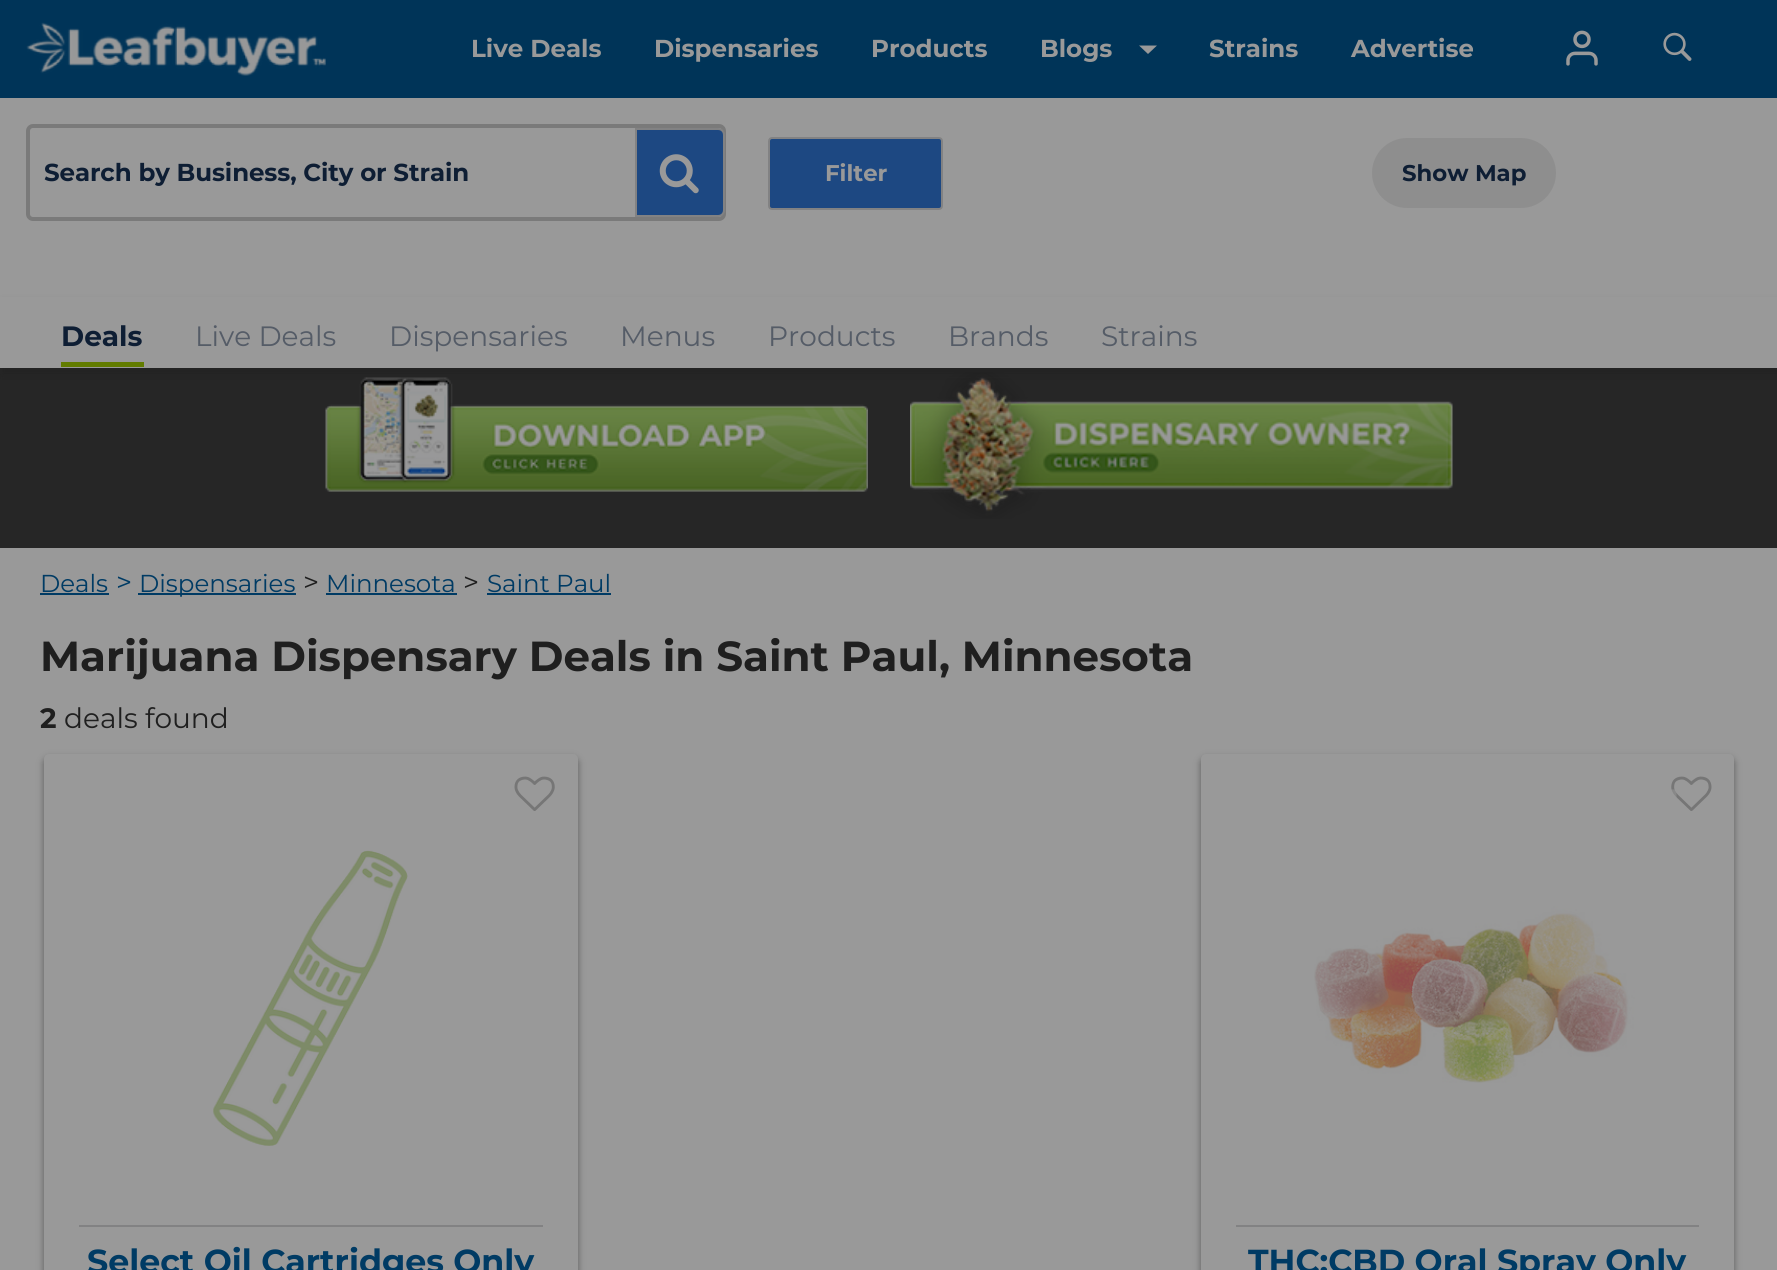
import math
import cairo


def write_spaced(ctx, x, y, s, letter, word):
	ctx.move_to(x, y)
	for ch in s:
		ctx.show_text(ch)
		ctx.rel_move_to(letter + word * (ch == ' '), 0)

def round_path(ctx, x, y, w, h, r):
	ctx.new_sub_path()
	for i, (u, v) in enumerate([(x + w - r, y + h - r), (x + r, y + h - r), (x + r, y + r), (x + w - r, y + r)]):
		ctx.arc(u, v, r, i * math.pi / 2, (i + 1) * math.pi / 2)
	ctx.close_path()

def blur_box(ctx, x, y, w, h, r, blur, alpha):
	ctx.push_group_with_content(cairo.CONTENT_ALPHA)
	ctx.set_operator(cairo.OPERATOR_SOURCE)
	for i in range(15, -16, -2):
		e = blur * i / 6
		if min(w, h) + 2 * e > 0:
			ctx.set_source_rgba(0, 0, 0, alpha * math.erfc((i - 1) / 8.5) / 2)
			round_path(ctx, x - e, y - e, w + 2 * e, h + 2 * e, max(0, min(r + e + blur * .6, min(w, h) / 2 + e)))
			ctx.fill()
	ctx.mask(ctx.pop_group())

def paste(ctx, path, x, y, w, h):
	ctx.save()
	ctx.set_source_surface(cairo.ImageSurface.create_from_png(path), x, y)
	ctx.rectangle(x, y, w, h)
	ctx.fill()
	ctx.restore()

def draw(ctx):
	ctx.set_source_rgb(0.6, 0.6, 0.6)
	ctx.paint()
	ctx.set_source_rgb(0, 0.204, 0.345)
	ctx.rectangle(0, 0, 1777, 98)
	ctx.fill()
	paste(ctx, 'media/1.png', 26, 22, 300, 54)
	ctx.select_font_face('Montserrat', cairo.FONT_SLANT_NORMAL, cairo.FONT_WEIGHT_BOLD)
	ctx.set_font_size(24.5)
	ctx.set_source_rgb(0.6, 0.6, 0.6)
	for x, y, s in [
		(471, 57, 'Live Deals'),
		(654, 57, 'Dispensaries'),
		(871, 57, 'Products'),
		(1040, 57, 'Blogs'),
	]:
		ctx.move_to(x, y)
		ctx.show_text(s)
	ctx.new_path()
	ctx.move_to(1139, 45.5)
	ctx.line_to(1157, 45.5)
	ctx.line_to(1148, 54)
	ctx.close_path()
	ctx.fill()
	ctx.move_to(1209, 57)
	ctx.show_text('Strains')
	ctx.move_to(1351, 57)
	ctx.show_text('Advertise')
	paste(ctx, 'media/2.png', 1566, 30, 32, 36)
	paste(ctx, 'media/3.png', 1663, 32, 29, 29)
	round_path(ctx, 28, 126, 696, 93, 5)
	ctx.set_source_rgb(0.478, 0.478, 0.478)
	ctx.set_line_width(4)
	ctx.stroke()
	ctx.set_source_rgb(0.055, 0.118, 0.204)
	write_spaced(ctx, 44, 181, 'Search by Business, City or Strain', -0.1, 0)
	ctx.set_source_rgb(0.114, 0.282, 0.51)
	ctx.new_path()
	ctx.move_to(636, 129)
	ctx.line_to(718, 129)
	ctx.curve_to(721.5, 129, 724, 131.5, 724, 135)
	ctx.line_to(724, 210)
	ctx.curve_to(724, 213.5, 721.5, 216, 718, 216)
	ctx.line_to(636, 216)
	ctx.close_path()
	ctx.fill_preserve()
	ctx.set_source_rgb(0.51, 0.51, 0.514)
	ctx.set_line_width(2)
	ctx.stroke()
	paste(ctx, 'media/4.png', 659, 154, 40, 40)
	ctx.set_source_rgb(0.114, 0.282, 0.51)
	round_path(ctx, 769, 138, 173, 71, 3)
	ctx.fill_preserve()
	ctx.set_source_rgb(0.51, 0.51, 0.514)
	ctx.stroke()
	ctx.set_font_size(22.75)
	ctx.set_source_rgb(0.6, 0.6, 0.6)
	ctx.move_to(825, 181)
	ctx.show_text('Filter')
	ctx.set_source_rgb(0.557, 0.557, 0.557)
	round_path(ctx, 1372, 138, 184, 70, 35)
	ctx.fill()
	ctx.set_source_rgb(0.055, 0.118, 0.204)
	ctx.move_to(1402, 181)
	ctx.show_text('Show Map')
	ctx.set_source_rgb(0.149, 0.149, 0.149)
	ctx.rectangle(0, 368, 1777, 180)
	ctx.fill()
	paste(ctx, 'media/5.png', 325, 377, 543, 115)
	paste(ctx, 'media/6.png', 910, 372, 543, 147)
	ctx.set_source_rgb(0.122, 0.122, 0.122)
	blur_box(ctx, 2, 303, 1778, 72, 0, 3.5, 0.5)
	ctx.set_source_rgb(0.6, 0.6, 0.6)
	ctx.rectangle(0, 297, 1777, 71)
	ctx.fill()
	ctx.set_font_size(28)
	ctx.set_source_rgb(0.055, 0.118, 0.204)
	ctx.move_to(61, 346)
	ctx.show_text('Deals')
	ctx.set_source_rgb(0.384, 0.486, 0)
	ctx.rectangle(61, 362, 83, 5)
	ctx.fill()
	ctx.select_font_face('Montserrat')
	ctx.set_source_rgb(0.333, 0.361, 0.404)
	for x, y, s in [
		(195, 346, 'Live Deals'),
		(389, 346, 'Dispensaries'),
		(620, 346, 'Menus'),
		(768, 346, 'Products'),
		(948, 346, 'Brands'),
		(1101, 346, 'Strains'),
	]:
		ctx.move_to(x, y)
		ctx.show_text(s)
	ctx.set_font_size(24.5)
	ctx.set_source_rgb(0, 0.231, 0.392)
	ctx.move_to(40, 592)
	ctx.show_text('Deals')
	ctx.rectangle(40, 593, 69, 2)
	ctx.fill()
	ctx.set_font_size(28)
	ctx.move_to(116, 592)
	ctx.show_text('>')
	ctx.rectangle(138, 593, 158, 2)
	ctx.fill()
	ctx.set_font_size(24.5)
	ctx.move_to(139, 592)
	ctx.show_text('Dispensaries')
	ctx.set_font_size(28)
	ctx.set_source_rgb(0.122, 0.122, 0.122)
	ctx.move_to(303, 592)
	ctx.show_text('>')
	ctx.set_font_size(24.5)
	ctx.set_source_rgb(0, 0.231, 0.392)
	ctx.move_to(326, 592)
	ctx.show_text('Minnesota')
	ctx.rectangle(326, 593, 131, 2)
	ctx.fill()
	ctx.set_font_size(28)
	ctx.set_source_rgb(0.122, 0.122, 0.122)
	ctx.move_to(463, 592)
	ctx.show_text('>')
	ctx.set_font_size(24.5)
	ctx.set_source_rgb(0, 0.231, 0.392)
	ctx.move_to(487, 592)
	ctx.show_text('Saint Paul')
	ctx.rectangle(487, 593, 124, 2)
	ctx.fill()
	ctx.select_font_face('Montserrat', cairo.FONT_SLANT_NORMAL, cairo.FONT_WEIGHT_BOLD)
	ctx.set_font_size(42)
	ctx.set_source_rgb(0.122, 0.122, 0.122)
	ctx.move_to(40, 671)
	ctx.show_text('Marijuana Dispensary Deals in Saint Paul, Minnesota')
	ctx.set_font_size(28)
	ctx.move_to(40, 728)
	ctx.show_text('2')
	ctx.select_font_face('Montserrat')
	ctx.move_to(64, 728)
	ctx.show_text('deals found')
	ctx.set_source_rgb(0.122, 0.122, 0.122)
	blur_box(ctx, 44, 758, 534, 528, 5, 3.5, 0.5)
	ctx.set_source_rgb(0.6, 0.6, 0.6)
	round_path(ctx, 44, 754, 534, 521, 5)
	ctx.fill()
	ctx.set_source_rgb(0.51, 0.51, 0.514)
	ctx.rectangle(79, 1225, 464, 2)
	ctx.fill()
	paste(ctx, 'media/7.png', 514, 776, 41, 35)
	paste(ctx, 'media/8.png', 213, 850, 195, 296)
	ctx.select_font_face('Montserrat', cairo.FONT_SLANT_NORMAL, cairo.FONT_WEIGHT_BOLD)
	ctx.set_font_size(33.25)
	ctx.set_source_rgb(0, 0.231, 0.392)
	ctx.move_to(87, 1273)
	ctx.show_text('Select Oil Cartridges Only')
	ctx.set_source_rgb(0.122, 0.122, 0.122)
	blur_box(ctx, 1201, 758, 533, 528, 5, 3.5, 0.5)
	ctx.set_source_rgb(0.6, 0.6, 0.6)
	round_path(ctx, 1201, 754, 533, 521, 5)
	ctx.fill()
	ctx.set_source_rgb(0.51, 0.51, 0.514)
	ctx.rectangle(1236, 1225, 463, 2)
	ctx.fill()
	paste(ctx, 'media/10.png', 1671, 776, 41, 35)
	paste(ctx, 'media/9.png', 1314, 789, 363, 294)
	ctx.set_source_rgb(0, 0.231, 0.392)
	ctx.move_to(1248, 1273)
	ctx.show_text('THC:CBD Oral Spray Only')


surface = cairo.ImageSurface(cairo.FORMAT_RGB24, 1777, 1270)
ctx = cairo.Context(surface)
options = cairo.FontOptions()
options.set_hint_metrics(cairo.HINT_METRICS_OFF)
options.set_hint_style(cairo.HINT_STYLE_NONE)
ctx.set_font_options(options)
ctx.set_miter_limit(4)
draw(ctx)
surface.write_to_png('image.png')
